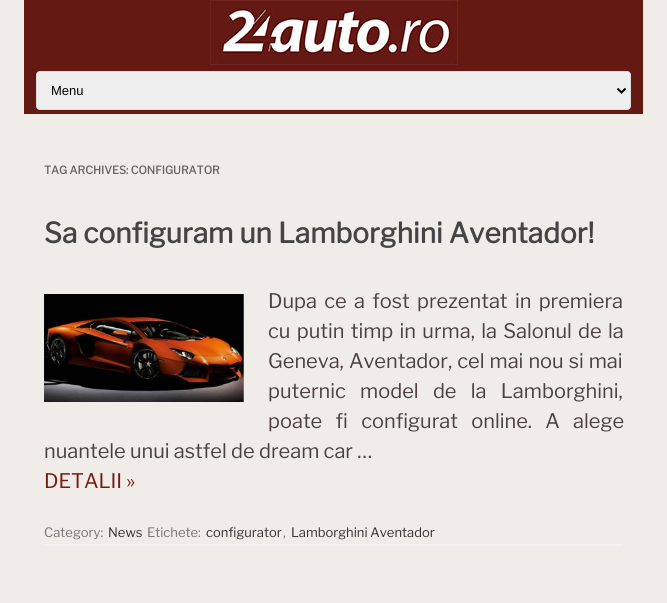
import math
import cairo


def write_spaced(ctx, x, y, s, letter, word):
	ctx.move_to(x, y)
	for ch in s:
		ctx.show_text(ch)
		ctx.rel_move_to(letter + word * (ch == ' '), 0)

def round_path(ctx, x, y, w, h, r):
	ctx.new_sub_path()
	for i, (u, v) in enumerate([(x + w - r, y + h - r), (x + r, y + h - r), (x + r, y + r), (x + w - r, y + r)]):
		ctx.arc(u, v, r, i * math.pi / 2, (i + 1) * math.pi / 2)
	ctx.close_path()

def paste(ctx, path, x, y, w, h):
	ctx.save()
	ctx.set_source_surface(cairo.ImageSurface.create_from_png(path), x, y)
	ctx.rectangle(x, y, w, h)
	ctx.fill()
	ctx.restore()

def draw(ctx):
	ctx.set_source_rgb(0.941, 0.929, 0.914)
	ctx.paint()
	ctx.set_source_rgb(0.392, 0.098, 0.078)
	ctx.rectangle(24, 0, 619, 114)
	ctx.fill()
	paste(ctx, 'media/1.png', 210, 0, 248, 65)
	ctx.set_source_rgb(0.937, 0.937, 0.937)
	round_path(ctx, 36.5, 71.5, 594, 38, 3.5)
	ctx.fill_preserve()
	ctx.set_source_rgb(0.867, 0.867, 0.867)
	ctx.set_line_width(1)
	ctx.stroke()
	ctx.new_path()
	ctx.move_to(617.5, 88.5)
	ctx.line_to(621.5, 92.5)
	ctx.line_to(625.5, 88.5)
	ctx.set_source_rgb(0, 0, 0)
	ctx.set_line_width(2)
	ctx.stroke()
	ctx.select_font_face('Liberation Sans')
	ctx.set_font_size(13)
	ctx.move_to(51, 95)
	ctx.show_text('Menu')
	ctx.select_font_face('Libre Franklin', cairo.FONT_SLANT_NORMAL, cairo.FONT_WEIGHT_BOLD)
	ctx.set_font_size(11)
	ctx.set_source_rgb(0.388, 0.388, 0.388)
	ctx.move_to(44, 174)
	ctx.show_text('TAG ARCHIVES: CONFIGURATOR')
	ctx.set_source_rgb(0.953, 0.953, 0.953)
	ctx.rectangle(44, 544, 579, 2)
	ctx.fill()
	ctx.set_font_size(28)
	ctx.set_source_rgb(0.267, 0.267, 0.267)
	ctx.move_to(44, 243)
	ctx.show_text('Sa configuram un Lamborghini Aventador!')
	ctx.select_font_face('Libre Franklin Thin')
	ctx.set_font_size(20)
	ctx.set_source_rgb(0.302, 0.255, 0.239)
	write_spaced(ctx, 268, 308, 'Dupa ce a fost prezentat in premiera', 0, 3)
	write_spaced(ctx, 268, 338, 'cu putin timp in urma, la Salonul de la', 0, 2)
	write_spaced(ctx, 268, 368, 'Geneva, Aventador, cel mai nou si mai', 0, 0.75)
	write_spaced(ctx, 268, 398, 'puternic model de la Lamborghini,', 0, 10)
	write_spaced(ctx, 268, 428, 'poate fi configurat online. A alege', 0, 9)
	ctx.move_to(44, 458)
	ctx.show_text('nuantele unui astfel de dream car …')
	ctx.set_source_rgb(0.455, 0.102, 0.078)
	ctx.move_to(44, 488)
	ctx.show_text('DETALII »')
	paste(ctx, 'media/2.png', 44, 294, 200, 108)
	ctx.set_font_size(13)
	ctx.set_source_rgb(0.459, 0.459, 0.459)
	ctx.move_to(44, 537)
	ctx.show_text('Category:')
	ctx.set_source_rgb(0.2, 0.2, 0.2)
	ctx.move_to(108, 537)
	ctx.show_text('News')
	ctx.set_source_rgb(0.459, 0.459, 0.459)
	ctx.move_to(147, 537)
	ctx.show_text('Etichete:')
	ctx.set_source_rgb(0.2, 0.2, 0.2)
	ctx.move_to(206, 537)
	ctx.show_text('configurator')
	ctx.set_source_rgb(0.459, 0.459, 0.459)
	ctx.move_to(283, 537)
	ctx.show_text(',')
	ctx.set_source_rgb(0.2, 0.2, 0.2)
	ctx.move_to(291, 537)
	ctx.show_text('Lamborghini Aventador')


surface = cairo.ImageSurface(cairo.FORMAT_RGB24, 667, 603)
ctx = cairo.Context(surface)
options = cairo.FontOptions()
options.set_hint_metrics(cairo.HINT_METRICS_OFF)
options.set_hint_style(cairo.HINT_STYLE_NONE)
ctx.set_font_options(options)
ctx.set_miter_limit(4)
draw(ctx)
surface.write_to_png('image.png')
